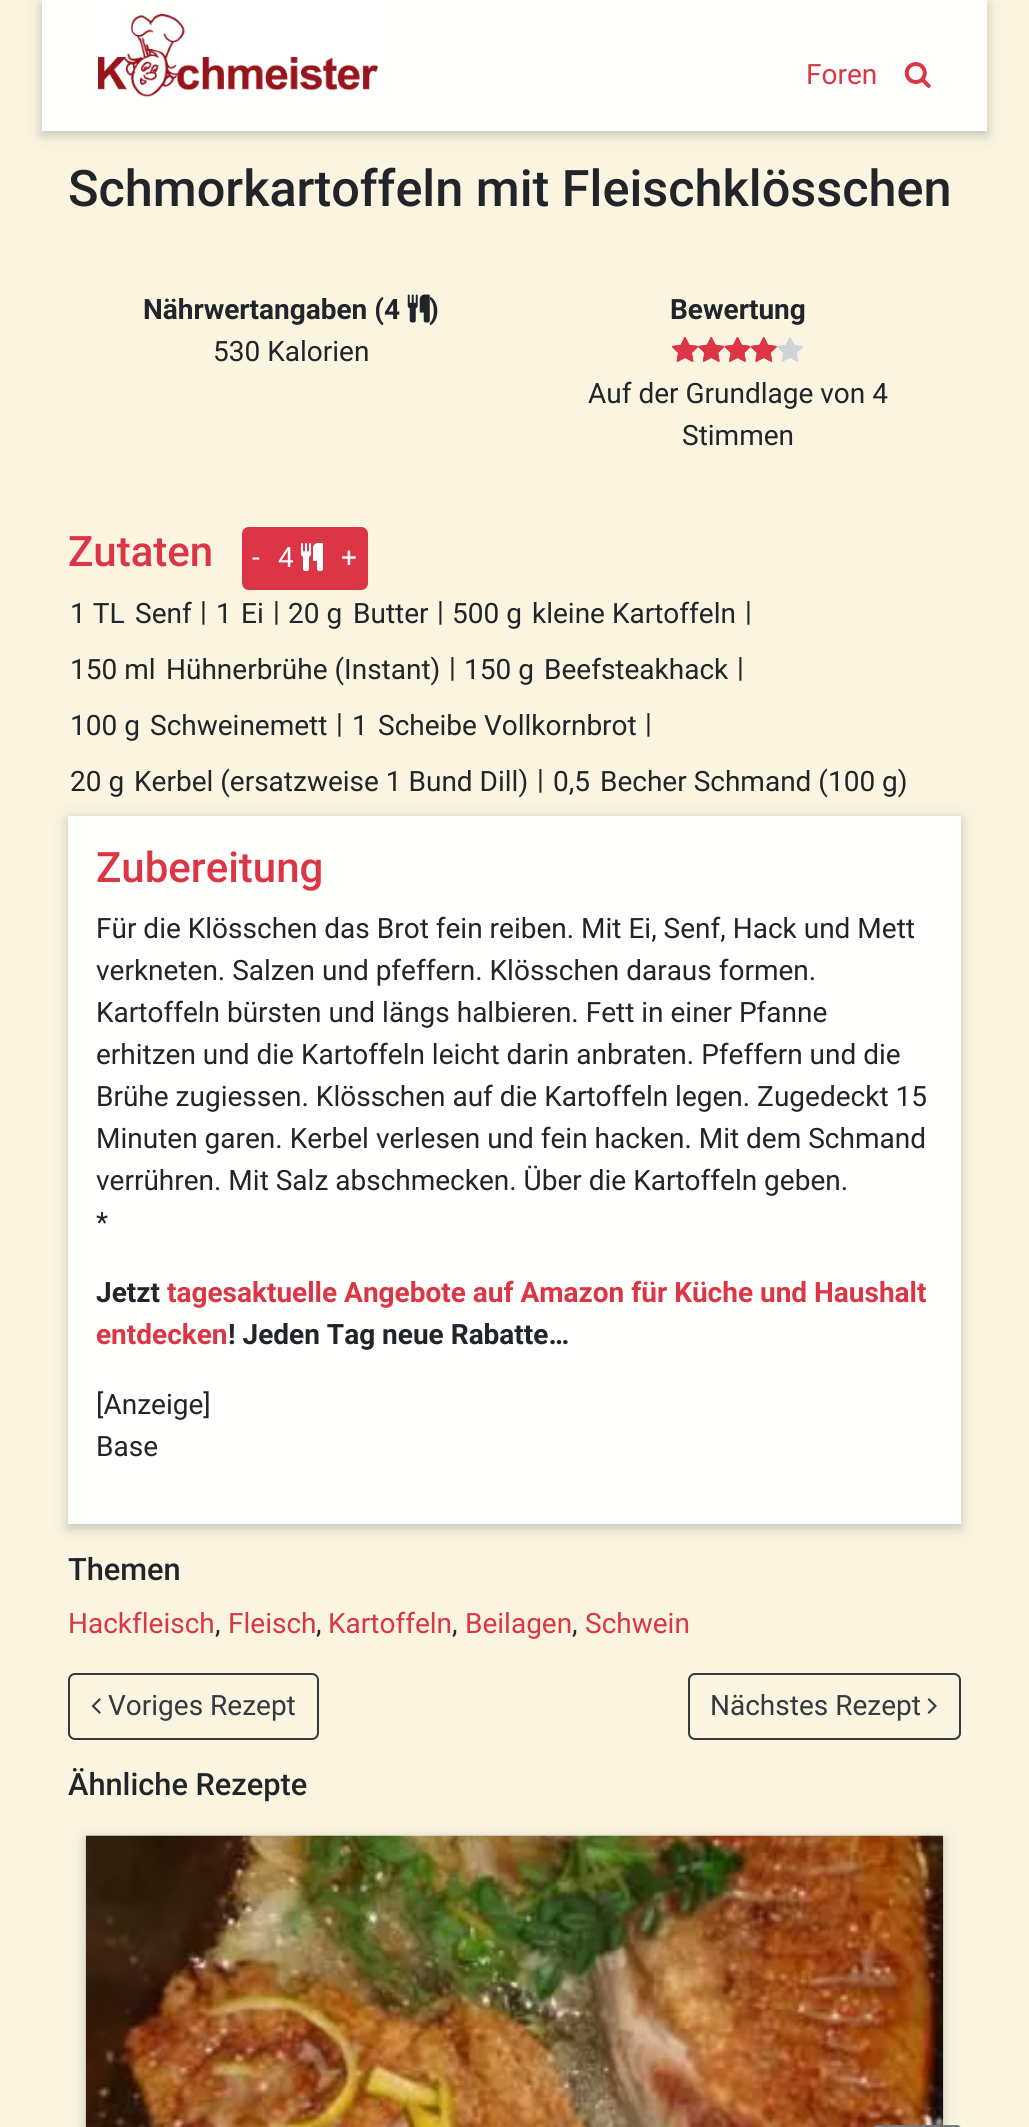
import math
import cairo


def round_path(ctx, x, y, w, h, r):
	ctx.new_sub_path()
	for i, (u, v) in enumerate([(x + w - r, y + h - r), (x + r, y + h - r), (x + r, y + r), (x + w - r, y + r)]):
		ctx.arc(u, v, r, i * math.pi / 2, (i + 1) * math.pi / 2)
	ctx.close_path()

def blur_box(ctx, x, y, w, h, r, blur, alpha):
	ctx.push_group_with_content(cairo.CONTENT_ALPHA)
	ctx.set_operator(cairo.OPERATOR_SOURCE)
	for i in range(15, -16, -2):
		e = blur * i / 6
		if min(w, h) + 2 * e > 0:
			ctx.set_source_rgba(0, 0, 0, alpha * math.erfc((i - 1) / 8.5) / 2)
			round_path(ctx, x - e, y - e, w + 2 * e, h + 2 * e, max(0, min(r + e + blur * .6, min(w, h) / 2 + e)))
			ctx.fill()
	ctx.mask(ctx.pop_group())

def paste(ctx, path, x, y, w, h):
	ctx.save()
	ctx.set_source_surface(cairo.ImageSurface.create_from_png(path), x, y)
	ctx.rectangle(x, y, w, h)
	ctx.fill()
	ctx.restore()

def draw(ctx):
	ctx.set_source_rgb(0.98, 0.957, 0.878)
	ctx.paint()
	ctx.set_source_rgb(0.204, 0.227, 0.251)
	blur_box(ctx, 42, 4, 945, 131, 0, 9, 0.12)
	blur_box(ctx, 42, 4, 945, 131, 0, 4.5, 0.16)
	ctx.set_source_rgb(1, 1, 0.996)
	ctx.rectangle(42, 0, 945, 131)
	ctx.fill()
	paste(ctx, 'media/1.png', 98, 14, 280, 83)
	ctx.select_font_face('Roboto')
	ctx.set_font_size(28)
	ctx.set_source_rgb(0.863, 0.208, 0.271)
	ctx.move_to(806, 84)
	ctx.show_text('Foren')
	paste(ctx, 'media/2.png', 904, 62, 27, 26)
	ctx.select_font_face('Roboto Medium')
	ctx.set_font_size(50.4)
	ctx.set_source_rgb(0.129, 0.145, 0.161)
	ctx.move_to(68, 206)
	ctx.show_text('Schmorkartoffeln mit Fleischklösschen')
	ctx.select_font_face('Roboto', cairo.FONT_SLANT_NORMAL, cairo.FONT_WEIGHT_BOLD)
	ctx.set_font_size(28)
	ctx.move_to(143, 319)
	ctx.show_text('Nährwertangaben (4')
	paste(ctx, 'media/3.png', 407, 294, 23, 29)
	ctx.move_to(429, 319)
	ctx.show_text(')')
	ctx.select_font_face('Roboto')
	ctx.move_to(213, 361)
	ctx.show_text('530 Kalorien')
	ctx.select_font_face('Roboto', cairo.FONT_SLANT_NORMAL, cairo.FONT_WEIGHT_BOLD)
	ctx.move_to(670, 319)
	ctx.show_text('Bewertung')
	paste(ctx, 'media/4.png', 672, 337, 26, 25)
	paste(ctx, 'media/5.png', 672, 337, 26, 25)
	paste(ctx, 'media/6.png', 698, 337, 27, 25)
	paste(ctx, 'media/7.png', 698, 337, 27, 25)
	paste(ctx, 'media/8.png', 724, 337, 27, 25)
	paste(ctx, 'media/9.png', 725, 337, 26, 25)
	paste(ctx, 'media/10.png', 750, 337, 27, 25)
	paste(ctx, 'media/11.png', 751, 337, 26, 25)
	paste(ctx, 'media/12.png', 777, 337, 26, 25)
	ctx.select_font_face('Roboto')
	ctx.move_to(588, 403)
	ctx.show_text('Auf der Grundlage von 4')
	ctx.move_to(682, 445)
	ctx.show_text('Stimmen')
	ctx.select_font_face('Roboto Medium')
	ctx.set_font_size(42)
	ctx.set_source_rgb(0.863, 0.208, 0.271)
	ctx.move_to(68, 566)
	ctx.show_text('Zutaten')
	ctx.new_path()
	ctx.move_to(249, 528)
	ctx.line_to(269, 528)
	ctx.line_to(269, 589)
	ctx.line_to(249, 589)
	ctx.curve_to(245.5, 589, 243, 586.5, 243, 583)
	ctx.line_to(243, 534)
	ctx.curve_to(243, 530.5, 245.5, 528, 249, 528)
	ctx.close_path()
	ctx.fill_preserve()
	ctx.stroke()
	ctx.select_font_face('Roboto')
	ctx.set_font_size(28)
	ctx.set_source_rgb(1, 1, 0.996)
	ctx.move_to(252, 567)
	ctx.show_text('-')
	ctx.set_source_rgb(0.863, 0.208, 0.271)
	ctx.rectangle(270, 527, 61, 63)
	ctx.fill()
	ctx.set_source_rgb(1, 1, 0.996)
	ctx.move_to(278, 567)
	ctx.show_text('4')
	paste(ctx, 'media/13.png', 301, 543, 22, 28)
	ctx.set_source_rgb(0.863, 0.208, 0.271)
	ctx.new_path()
	ctx.move_to(332, 528)
	ctx.line_to(361, 528)
	ctx.curve_to(364.5, 528, 367, 530.5, 367, 534)
	ctx.line_to(367, 583)
	ctx.curve_to(367, 586.5, 364.5, 589, 361, 589)
	ctx.line_to(332, 589)
	ctx.close_path()
	ctx.fill_preserve()
	ctx.stroke()
	ctx.set_source_rgb(1, 1, 0.996)
	ctx.move_to(341, 567)
	ctx.show_text('+')
	ctx.set_source_rgb(0.129, 0.145, 0.161)
	for x, y, s in [
		(70, 623, '1 TL'),
		(135, 623, 'Senf'),
		(745, 621, '|'),
		(70, 679, '150 ml'),
		(166, 679, 'Hühnerbrühe (Instant)'),
		(200, 621, '|'),
		(216, 623, '1'),
		(241, 623, 'Ei'),
		(273, 621, '|'),
		(288, 623, '20 g'),
		(353, 623, 'Butter'),
		(437, 621, '|'),
		(452, 623, '500 g'),
		(532, 623, 'kleine Kartoffeln'),
		(737, 677, '|'),
		(70, 735, '100 g'),
		(150, 735, 'Schweinemett'),
		(449, 677, '|'),
		(464, 679, '150 g'),
		(544, 679, 'Beefsteakhack'),
		(645, 733, '|'),
		(70, 791, '20 g'),
		(134, 791, 'Kerbel (ersatzweise 1 Bund Dill)'),
		(336, 733, '|'),
		(352, 735, '1'),
		(378, 735, 'Scheibe Vollkornbrot'),
		(537, 789, '|'),
		(553, 791, '0,5'),
		(600, 791, 'Becher Schmand (100 g)'),
	]:
		ctx.move_to(x, y)
		ctx.show_text(s)
	ctx.set_source_rgb(0.204, 0.227, 0.251)
	blur_box(ctx, 68, 819, 893, 709, 0, 9, 0.12)
	blur_box(ctx, 68, 819, 893, 709, 0, 4.5, 0.16)
	ctx.set_source_rgb(1, 1, 0.996)
	ctx.rectangle(68, 816, 893, 708)
	ctx.fill()
	ctx.select_font_face('Roboto Medium')
	ctx.set_font_size(42)
	ctx.set_source_rgb(0.863, 0.208, 0.271)
	ctx.move_to(96, 882)
	ctx.show_text('Zubereitung')
	ctx.select_font_face('Roboto')
	ctx.set_font_size(28)
	ctx.set_source_rgb(0.129, 0.145, 0.161)
	for x, y, s in [
		(96, 938, 'Für die Klösschen das Brot fein reiben. Mit Ei, Senf, Hack und Mett'),
		(96, 980, 'verkneten. Salzen und pfeffern. Klösschen daraus formen.'),
		(96, 1022, 'Kartoffeln bürsten und längs halbieren. Fett in einer Pfanne'),
		(96, 1064, 'erhitzen und die Kartoffeln leicht darin anbraten. Pfeffern und die'),
		(96, 1106, 'Brühe zugiessen. Klösschen auf die Kartoffeln legen. Zugedeckt 15'),
		(96, 1148, 'Minuten garen. Kerbel verlesen und fein hacken. Mit dem Schmand'),
		(96, 1190, 'verrühren. Mit Salz abschmecken. Über die Kartoffeln geben.'),
		(96, 1232, '*'),
	]:
		ctx.move_to(x, y)
		ctx.show_text(s)
	ctx.select_font_face('Roboto', cairo.FONT_SLANT_NORMAL, cairo.FONT_WEIGHT_BOLD)
	ctx.move_to(96, 1302)
	ctx.show_text('Jetzt')
	ctx.set_source_rgb(0.863, 0.208, 0.271)
	ctx.move_to(167, 1302)
	ctx.show_text('tagesaktuelle Angebote auf Amazon für Küche und Haushalt')
	ctx.move_to(96, 1344)
	ctx.show_text('entdecken')
	ctx.set_source_rgb(0.129, 0.145, 0.161)
	ctx.move_to(228, 1344)
	ctx.show_text('! Jeden Tag neue Rabatte…')
	ctx.select_font_face('Roboto')
	ctx.move_to(96, 1414)
	ctx.show_text('[Anzeige]')
	ctx.move_to(96, 1456)
	ctx.show_text('Base')
	ctx.select_font_face('Roboto Medium')
	ctx.set_font_size(30.75)
	ctx.move_to(68, 1580)
	ctx.show_text('Themen')
	ctx.select_font_face('Roboto')
	ctx.set_font_size(28)
	ctx.set_source_rgb(0.863, 0.208, 0.271)
	ctx.move_to(68, 1633)
	ctx.show_text('Hackfleisch')
	ctx.set_source_rgb(0.129, 0.145, 0.161)
	ctx.move_to(215, 1633)
	ctx.show_text(',')
	ctx.set_source_rgb(0.863, 0.208, 0.271)
	ctx.move_to(228, 1633)
	ctx.show_text('Fleisch')
	ctx.set_source_rgb(0.129, 0.145, 0.161)
	ctx.move_to(316, 1633)
	ctx.show_text(',')
	ctx.set_source_rgb(0.863, 0.208, 0.271)
	ctx.move_to(328, 1633)
	ctx.show_text('Kartoffeln')
	ctx.set_source_rgb(0.129, 0.145, 0.161)
	ctx.move_to(452, 1633)
	ctx.show_text(',')
	ctx.set_source_rgb(0.863, 0.208, 0.271)
	ctx.move_to(465, 1633)
	ctx.show_text('Beilagen')
	ctx.set_source_rgb(0.129, 0.145, 0.161)
	ctx.move_to(572, 1633)
	ctx.show_text(',')
	ctx.set_source_rgb(0.863, 0.208, 0.271)
	ctx.move_to(585, 1633)
	ctx.show_text('Schwein')
	round_path(ctx, 69, 1674, 249, 65, 6)
	ctx.set_source_rgb(0.204, 0.227, 0.251)
	ctx.stroke()
	paste(ctx, 'media/14.png', 91, 1698, 10, 16)
	ctx.move_to(108, 1715)
	ctx.show_text('Voriges Rezept')
	round_path(ctx, 689, 1674, 271, 65, 6)
	ctx.stroke()
	ctx.move_to(710, 1715)
	ctx.show_text('Nächstes Rezept')
	paste(ctx, 'media/15.png', 927, 1698, 10, 16)
	ctx.select_font_face('Roboto Medium')
	ctx.set_font_size(30.75)
	ctx.set_source_rgb(0.129, 0.145, 0.161)
	ctx.move_to(68, 1795)
	ctx.show_text('Ähnliche Rezepte')
	ctx.set_source_rgb(0.204, 0.227, 0.251)
	blur_box(ctx, 86, 1839, 857, 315, 0, 9, 0.12)
	blur_box(ctx, 86, 1839, 857, 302, 0, 4.5, 0.16)
	paste(ctx, 'media/16.png', 85, 1835, 859, 292)
	round_path(ctx, 874, 2126, 86, 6, 3)
	ctx.set_source_rgb(0.463, 0.463, 0.463)
	ctx.stroke()


surface = cairo.ImageSurface(cairo.FORMAT_RGB24, 1029, 2127)
ctx = cairo.Context(surface)
options = cairo.FontOptions()
options.set_hint_metrics(cairo.HINT_METRICS_OFF)
options.set_hint_style(cairo.HINT_STYLE_NONE)
ctx.set_font_options(options)
ctx.set_miter_limit(4)
draw(ctx)
surface.write_to_png('image.png')
